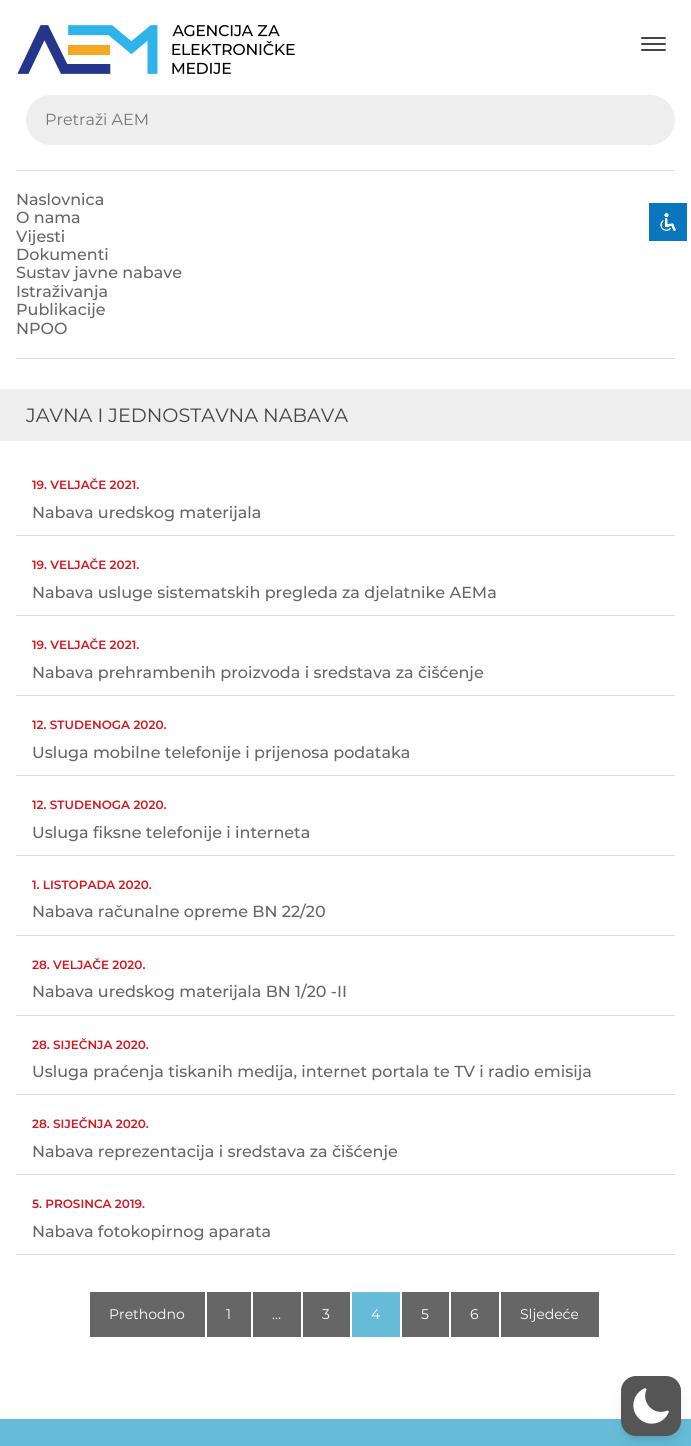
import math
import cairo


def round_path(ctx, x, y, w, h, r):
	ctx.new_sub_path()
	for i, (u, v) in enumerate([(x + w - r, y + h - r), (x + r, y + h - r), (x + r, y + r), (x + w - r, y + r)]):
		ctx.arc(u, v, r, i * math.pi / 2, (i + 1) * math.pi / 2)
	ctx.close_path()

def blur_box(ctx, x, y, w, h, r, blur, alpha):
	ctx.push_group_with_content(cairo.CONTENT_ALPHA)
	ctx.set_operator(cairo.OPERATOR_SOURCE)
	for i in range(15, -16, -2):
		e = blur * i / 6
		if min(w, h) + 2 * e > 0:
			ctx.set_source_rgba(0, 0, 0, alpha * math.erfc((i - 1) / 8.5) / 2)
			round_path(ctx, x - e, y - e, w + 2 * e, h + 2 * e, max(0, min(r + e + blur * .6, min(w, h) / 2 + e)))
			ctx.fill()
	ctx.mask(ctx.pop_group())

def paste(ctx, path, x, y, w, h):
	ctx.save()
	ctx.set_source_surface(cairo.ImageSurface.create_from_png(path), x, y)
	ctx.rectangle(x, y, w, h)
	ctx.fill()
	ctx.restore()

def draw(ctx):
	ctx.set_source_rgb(1, 1, 1)
	ctx.paint()
	ctx.set_source_rgb(0.267, 0.267, 0.267)
	round_path(ctx, 641, 37, 25, 2, 1)
	ctx.fill()
	round_path(ctx, 641, 43, 25, 2, 1)
	ctx.fill()
	round_path(ctx, 641, 49, 25, 2, 1)
	ctx.fill()
	paste(ctx, 'media/1.png', 17, 25, 278, 49)
	ctx.set_source_rgb(0.933, 0.933, 0.933)
	round_path(ctx, 26, 95, 649, 50, 25)
	ctx.fill()
	ctx.select_font_face('Montserrat')
	ctx.set_font_size(16)
	ctx.set_source_rgb(0.459, 0.459, 0.459)
	ctx.move_to(45, 125)
	ctx.show_text('Pretraži AEM')
	ctx.set_source_rgb(0.867, 0.867, 0.867)
	ctx.rectangle(16, 170, 659, 1)
	ctx.fill()
	ctx.rectangle(16, 358, 659, 1)
	ctx.fill()
	ctx.select_font_face('Montserrat Medium')
	ctx.set_source_rgb(0.4, 0.4, 0.4)
	for x, y, s in [
		(16, 205, 'Naslovnica'),
		(16, 223, 'O nama'),
		(16, 242, 'Vijesti'),
		(16, 260, 'Dokumenti'),
		(16, 278, 'Sustav javne nabave'),
		(16, 297, 'Istraživanja'),
		(16, 315, 'Publikacije'),
		(16, 334, 'NPOO'),
	]:
		ctx.move_to(x, y)
		ctx.show_text(s)
	ctx.set_source_rgb(0.933, 0.933, 0.933)
	ctx.rectangle(0, 389, 691, 52)
	ctx.fill()
	ctx.select_font_face('Montserrat')
	ctx.set_font_size(19.25)
	ctx.set_source_rgb(0.267, 0.267, 0.267)
	ctx.move_to(26, 422)
	ctx.show_text('JAVNA I JEDNOSTAVNA NABAVA')
	ctx.set_source_rgb(0.867, 0.867, 0.867)
	ctx.rectangle(16, 535, 659, 1)
	ctx.fill()
	ctx.select_font_face('Montserrat SemiBold')
	ctx.set_font_size(12)
	ctx.set_source_rgb(0.827, 0.09, 0.129)
	ctx.move_to(32, 489)
	ctx.show_text('19. VELJAČE 2021.')
	ctx.select_font_face('Montserrat Medium')
	ctx.set_font_size(16)
	ctx.set_source_rgb(0.4, 0.4, 0.4)
	ctx.move_to(32, 518)
	ctx.show_text('Nabava uredskog materijala')
	ctx.set_source_rgb(0.867, 0.867, 0.867)
	ctx.rectangle(16, 615, 659, 1)
	ctx.fill()
	ctx.select_font_face('Montserrat SemiBold')
	ctx.set_font_size(12)
	ctx.set_source_rgb(0.827, 0.09, 0.129)
	ctx.move_to(32, 569)
	ctx.show_text('19. VELJAČE 2021.')
	ctx.select_font_face('Montserrat Medium')
	ctx.set_font_size(16)
	ctx.set_source_rgb(0.4, 0.4, 0.4)
	ctx.move_to(32, 598)
	ctx.show_text('Nabava usluge sistematskih pregleda za djelatnike AEMa')
	ctx.set_source_rgb(0.867, 0.867, 0.867)
	ctx.rectangle(16, 695, 659, 1)
	ctx.fill()
	ctx.select_font_face('Montserrat SemiBold')
	ctx.set_font_size(12)
	ctx.set_source_rgb(0.827, 0.09, 0.129)
	ctx.move_to(32, 649)
	ctx.show_text('19. VELJAČE 2021.')
	ctx.select_font_face('Montserrat Medium')
	ctx.set_font_size(16)
	ctx.set_source_rgb(0.4, 0.4, 0.4)
	ctx.move_to(32, 678)
	ctx.show_text('Nabava prehrambenih proizvoda i sredstava za čišćenje')
	ctx.set_source_rgb(0.867, 0.867, 0.867)
	ctx.rectangle(16, 775, 659, 1)
	ctx.fill()
	ctx.select_font_face('Montserrat SemiBold')
	ctx.set_font_size(12)
	ctx.set_source_rgb(0.827, 0.09, 0.129)
	ctx.move_to(32, 729)
	ctx.show_text('12. STUDENOGA 2020.')
	ctx.select_font_face('Montserrat Medium')
	ctx.set_font_size(16)
	ctx.set_source_rgb(0.4, 0.4, 0.4)
	ctx.move_to(32, 758)
	ctx.show_text('Usluga mobilne telefonije i prijenosa podataka')
	ctx.set_source_rgb(0.867, 0.867, 0.867)
	ctx.rectangle(16, 855, 659, 1)
	ctx.fill()
	ctx.select_font_face('Montserrat SemiBold')
	ctx.set_font_size(12)
	ctx.set_source_rgb(0.827, 0.09, 0.129)
	ctx.move_to(32, 809)
	ctx.show_text('12. STUDENOGA 2020.')
	ctx.select_font_face('Montserrat Medium')
	ctx.set_font_size(16)
	ctx.set_source_rgb(0.4, 0.4, 0.4)
	ctx.move_to(32, 838)
	ctx.show_text('Usluga fiksne telefonije i interneta')
	ctx.set_source_rgb(0.867, 0.867, 0.867)
	ctx.rectangle(16, 935, 659, 1)
	ctx.fill()
	ctx.select_font_face('Montserrat SemiBold')
	ctx.set_font_size(12)
	ctx.set_source_rgb(0.827, 0.09, 0.129)
	ctx.move_to(32, 889)
	ctx.show_text('1. LISTOPADA 2020.')
	ctx.select_font_face('Montserrat Medium')
	ctx.set_font_size(16)
	ctx.set_source_rgb(0.4, 0.4, 0.4)
	ctx.move_to(32, 917)
	ctx.show_text('Nabava računalne opreme BN 22/20')
	ctx.set_source_rgb(0.867, 0.867, 0.867)
	ctx.rectangle(16, 1015, 659, 1)
	ctx.fill()
	ctx.select_font_face('Montserrat SemiBold')
	ctx.set_font_size(12)
	ctx.set_source_rgb(0.827, 0.09, 0.129)
	ctx.move_to(32, 969)
	ctx.show_text('28. VELJAČE 2020.')
	ctx.select_font_face('Montserrat Medium')
	ctx.set_font_size(16)
	ctx.set_source_rgb(0.4, 0.4, 0.4)
	ctx.move_to(32, 997)
	ctx.show_text('Nabava uredskog materijala BN 1/20 -II')
	ctx.set_source_rgb(0.867, 0.867, 0.867)
	ctx.rectangle(16, 1094, 659, 1)
	ctx.fill()
	ctx.select_font_face('Montserrat SemiBold')
	ctx.set_font_size(12)
	ctx.set_source_rgb(0.827, 0.09, 0.129)
	ctx.move_to(32, 1049)
	ctx.show_text('28. SIJEČNJA 2020.')
	ctx.select_font_face('Montserrat Medium')
	ctx.set_font_size(16)
	ctx.set_source_rgb(0.4, 0.4, 0.4)
	ctx.move_to(32, 1077)
	ctx.show_text('Usluga praćenja tiskanih medija, internet portala te TV i radio emisija')
	ctx.set_source_rgb(0.867, 0.867, 0.867)
	ctx.rectangle(16, 1174, 659, 1)
	ctx.fill()
	ctx.select_font_face('Montserrat SemiBold')
	ctx.set_font_size(12)
	ctx.set_source_rgb(0.827, 0.09, 0.129)
	ctx.move_to(32, 1128)
	ctx.show_text('28. SIJEČNJA 2020.')
	ctx.select_font_face('Montserrat Medium')
	ctx.set_font_size(16)
	ctx.set_source_rgb(0.4, 0.4, 0.4)
	ctx.move_to(32, 1157)
	ctx.show_text('Nabava reprezentacija i sredstava za čišćenje')
	ctx.set_source_rgb(0.867, 0.867, 0.867)
	ctx.rectangle(16, 1254, 659, 1)
	ctx.fill()
	ctx.select_font_face('Montserrat SemiBold')
	ctx.set_font_size(12)
	ctx.set_source_rgb(0.827, 0.09, 0.129)
	ctx.move_to(32, 1208)
	ctx.show_text('5. PROSINCA 2019.')
	ctx.select_font_face('Montserrat Medium')
	ctx.set_font_size(16)
	ctx.set_source_rgb(0.4, 0.4, 0.4)
	ctx.move_to(32, 1237)
	ctx.show_text('Nabava fotokopirnog aparata')
	ctx.rectangle(90, 1292, 115, 45)
	ctx.fill()
	ctx.select_font_face('Montserrat')
	ctx.set_font_size(14)
	ctx.set_source_rgb(1, 1, 1)
	ctx.move_to(109, 1319)
	ctx.show_text('Prethodno')
	ctx.set_source_rgb(0.4, 0.4, 0.4)
	ctx.rectangle(207, 1292, 44, 45)
	ctx.fill()
	ctx.set_source_rgb(1, 1, 1)
	ctx.move_to(226, 1319)
	ctx.show_text('1')
	ctx.set_source_rgb(0.4, 0.4, 0.4)
	ctx.rectangle(253, 1292, 48, 45)
	ctx.fill()
	ctx.set_source_rgb(1, 1, 1)
	ctx.move_to(272, 1319)
	ctx.show_text('…')
	ctx.set_source_rgb(0.4, 0.4, 0.4)
	ctx.rectangle(303, 1292, 47, 45)
	ctx.fill()
	ctx.set_source_rgb(1, 1, 1)
	ctx.move_to(322, 1319)
	ctx.show_text('3')
	ctx.set_source_rgb(0.4, 0.737, 0.847)
	ctx.rectangle(352, 1292, 48, 45)
	ctx.fill()
	ctx.set_source_rgb(1, 1, 1)
	ctx.move_to(371, 1319)
	ctx.show_text('4')
	ctx.set_source_rgb(0.4, 0.4, 0.4)
	ctx.rectangle(402, 1292, 47, 45)
	ctx.fill()
	ctx.set_source_rgb(1, 1, 1)
	ctx.move_to(421, 1319)
	ctx.show_text('5')
	ctx.set_source_rgb(0.4, 0.4, 0.4)
	ctx.rectangle(451, 1292, 48, 45)
	ctx.fill()
	ctx.set_source_rgb(1, 1, 1)
	ctx.move_to(470, 1319)
	ctx.show_text('6')
	ctx.set_source_rgb(0.4, 0.4, 0.4)
	ctx.rectangle(501, 1292, 98, 45)
	ctx.fill()
	ctx.set_source_rgb(1, 1, 1)
	ctx.move_to(520, 1319)
	ctx.show_text('Sljedeće')
	ctx.set_source_rgb(0.4, 0.737, 0.847)
	ctx.rectangle(0, 1419, 691, 27)
	ctx.fill()
	ctx.set_source_rgb(0, 0, 0)
	blur_box(ctx, 625, 1384, 52, 52, 11, 3, 0.1)
	blur_box(ctx, 624, 1389, 54, 54, 12, 7.5, 0.1)
	ctx.set_source_rgb(0.333, 0.333, 0.333)
	round_path(ctx, 621, 1376, 60, 60, 15)
	ctx.fill()
	paste(ctx, 'media/2.png', 633, 1388, 36, 36)
	ctx.set_source_rgb(0.039, 0.463, 0.745)
	round_path(ctx, 647.5, 201.5, 41, 41, 0.5)
	ctx.fill_preserve()
	ctx.set_source_rgb(1, 1, 1)
	ctx.set_line_width(3)
	ctx.stroke()
	paste(ctx, 'media/3.png', 660, 213, 16, 18)


surface = cairo.ImageSurface(cairo.FORMAT_RGB24, 691, 1446)
ctx = cairo.Context(surface)
options = cairo.FontOptions()
options.set_hint_metrics(cairo.HINT_METRICS_OFF)
options.set_hint_style(cairo.HINT_STYLE_NONE)
ctx.set_font_options(options)
ctx.set_miter_limit(4)
draw(ctx)
surface.write_to_png('image.png')
